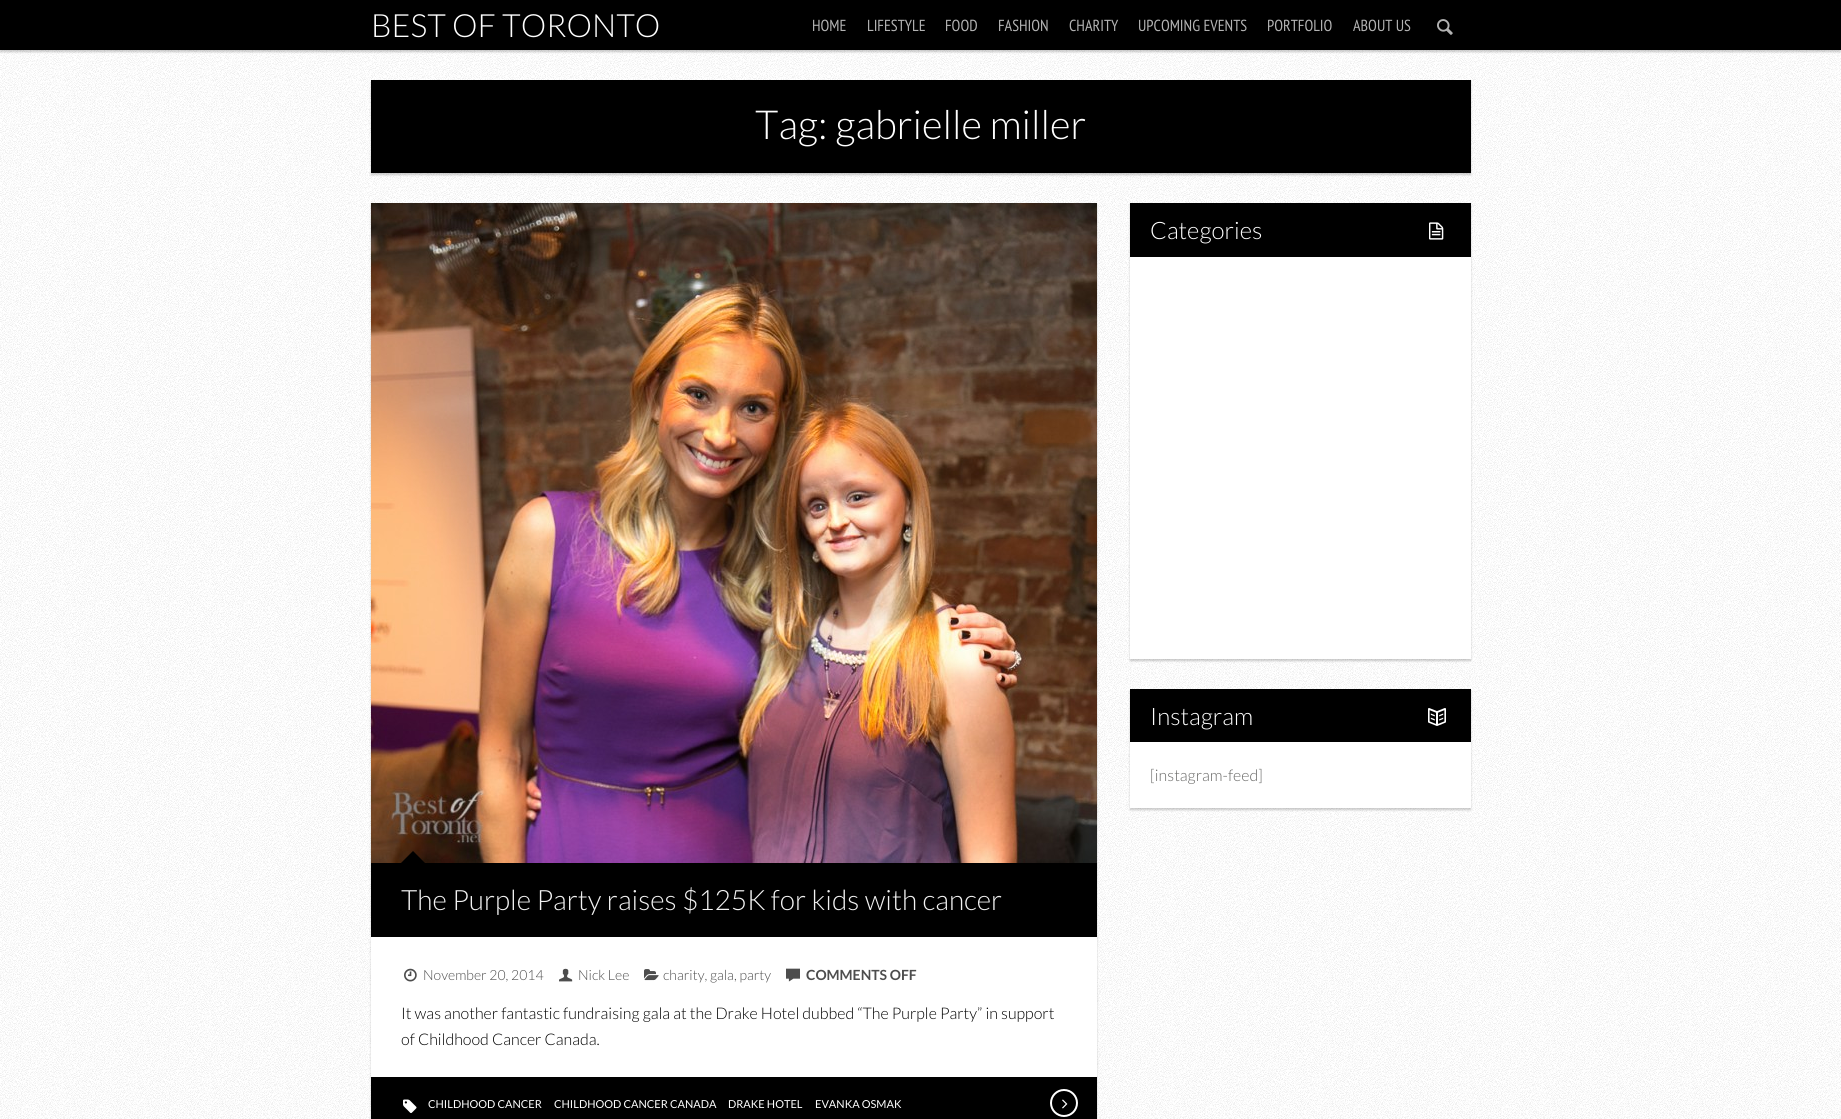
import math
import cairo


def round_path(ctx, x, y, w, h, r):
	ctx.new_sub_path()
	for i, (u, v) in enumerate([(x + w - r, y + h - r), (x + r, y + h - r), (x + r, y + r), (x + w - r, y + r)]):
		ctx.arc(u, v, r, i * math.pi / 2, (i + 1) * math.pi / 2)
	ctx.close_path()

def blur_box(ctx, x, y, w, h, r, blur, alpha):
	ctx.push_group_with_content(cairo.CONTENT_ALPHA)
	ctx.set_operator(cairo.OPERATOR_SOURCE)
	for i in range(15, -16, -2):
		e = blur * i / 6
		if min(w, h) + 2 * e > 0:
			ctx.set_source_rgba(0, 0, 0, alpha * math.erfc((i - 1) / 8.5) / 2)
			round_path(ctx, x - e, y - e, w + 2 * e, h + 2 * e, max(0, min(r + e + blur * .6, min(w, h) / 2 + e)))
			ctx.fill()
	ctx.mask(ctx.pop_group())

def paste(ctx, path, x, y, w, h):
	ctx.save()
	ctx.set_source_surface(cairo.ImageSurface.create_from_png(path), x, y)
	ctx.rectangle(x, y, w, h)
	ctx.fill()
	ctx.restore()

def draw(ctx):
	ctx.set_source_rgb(1, 1, 1)
	ctx.paint()
	paste(ctx, 'media/1.png', 0, 50, 1841, 1069)
	ctx.set_source_rgb(0, 0, 0)
	blur_box(ctx, 0, 2, 1841, 50, 0, 1, 0.2)
	ctx.set_source_rgb(0, 0, 0)
	ctx.rectangle(0, 0, 1841, 50)
	ctx.fill()
	ctx.select_font_face('Lato Light')
	ctx.set_font_size(32)
	ctx.set_source_rgb(1, 1, 1)
	ctx.move_to(371, 37)
	ctx.show_text('BEST OF TORONTO')
	ctx.select_font_face('PT Sans Narrow')
	ctx.set_font_size(16)
	ctx.set_source_rgb(0.702, 0.702, 0.702)
	for x, y, s in [
		(812, 31, 'HOME'),
		(867, 31, 'LIFESTYLE'),
		(945, 31, 'FOOD'),
		(998, 31, 'FASHION'),
		(1069, 31, 'CHARITY'),
		(1138, 31, 'UPCOMING EVENTS'),
		(1267, 31, 'PORTFOLIO'),
		(1353, 31, 'ABOUT US'),
	]:
		ctx.move_to(x, y)
		ctx.show_text(s)
	paste(ctx, 'media/2.png', 1437, 19, 16, 16)
	ctx.set_source_rgb(0, 0, 0)
	blur_box(ctx, 371, 82, 1100, 93, 0, 1, 0.2)
	ctx.set_source_rgb(0, 0, 0)
	ctx.rectangle(371, 80, 1100, 93)
	ctx.fill()
	ctx.select_font_face('Lato Light')
	ctx.set_font_size(40)
	ctx.set_source_rgb(1, 1, 1)
	ctx.move_to(755, 139)
	ctx.show_text('Tag: gabrielle miller')
	ctx.set_source_rgb(0, 0, 0)
	blur_box(ctx, 1130, 205, 341, 456, 0, 1, 0.2)
	ctx.set_source_rgb(1, 1, 1)
	ctx.rectangle(1130, 257, 341, 402)
	ctx.fill()
	ctx.set_source_rgb(0, 0, 0)
	ctx.rectangle(1130, 203, 341, 54)
	ctx.fill()
	ctx.set_font_size(24)
	ctx.set_source_rgb(1, 1, 1)
	ctx.move_to(1150, 239)
	ctx.show_text('Categories')
	paste(ctx, 'media/3.png', 1429, 222, 15, 18)
	ctx.set_source_rgb(0, 0, 0)
	blur_box(ctx, 1130, 691, 341, 119, 0, 1, 0.2)
	ctx.set_source_rgb(1, 1, 1)
	ctx.rectangle(1130, 742, 341, 66)
	ctx.fill()
	ctx.set_source_rgb(0, 0, 0)
	ctx.rectangle(1130, 689, 341, 53)
	ctx.fill()
	ctx.set_source_rgb(1, 1, 1)
	ctx.move_to(1150, 725)
	ctx.show_text('Instagram')
	paste(ctx, 'media/4.png', 1428, 708, 18, 18)
	ctx.set_font_size(16)
	ctx.set_source_rgb(0.404, 0.404, 0.396)
	ctx.move_to(1150, 781)
	ctx.show_text('[instagram-feed]')
	ctx.set_source_rgb(0, 0, 0)
	blur_box(ctx, 371, 205, 726, 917, 0, 1, 0.2)
	ctx.set_source_rgb(1, 1, 1)
	ctx.rectangle(371, 937, 726, 140)
	ctx.fill()
	paste(ctx, 'media/5.png', 371, 203, 726, 660)
	ctx.set_source_rgb(0, 0, 0)
	ctx.rectangle(371, 863, 726, 74)
	ctx.fill()
	ctx.new_path()
	ctx.move_to(425, 863)
	ctx.line_to(401, 863)
	ctx.line_to(413, 851)
	ctx.close_path()
	ctx.fill()
	ctx.set_font_size(28)
	ctx.set_source_rgb(0.949, 0.949, 0.949)
	ctx.move_to(401, 910)
	ctx.show_text('The Purple Party raises $125K for kids with cancer')
	paste(ctx, 'media/6.png', 404, 968, 13, 14)
	ctx.set_font_size(14)
	ctx.set_source_rgb(0.302, 0.302, 0.302)
	ctx.move_to(423, 980)
	ctx.show_text('November 20, 2014')
	paste(ctx, 'media/7.png', 559, 968, 14, 14)
	ctx.move_to(578, 980)
	ctx.show_text('Nick Lee')
	paste(ctx, 'media/8.png', 644, 969, 15, 12)
	ctx.move_to(663, 980)
	ctx.show_text('charity, gala, party')
	paste(ctx, 'media/9.png', 786, 968, 14, 14)
	ctx.select_font_face('Lato', cairo.FONT_SLANT_NORMAL, cairo.FONT_WEIGHT_BOLD)
	ctx.move_to(806, 980)
	ctx.show_text('COMMENTS OFF')
	ctx.select_font_face('Lato Light')
	ctx.set_font_size(16)
	ctx.set_source_rgb(0, 0, 0)
	ctx.move_to(401, 1019)
	ctx.show_text('It was another fantastic fundraising gala at the Drake Hotel dubbed “The Purple Party” in support')
	ctx.move_to(401, 1045)
	ctx.show_text('of Childhood Cancer Canada.')
	ctx.rectangle(371, 1077, 726, 42)
	ctx.fill()
	paste(ctx, 'media/10.png', 403, 1099, 14, 14)
	ctx.select_font_face('Lato')
	ctx.set_font_size(11)
	ctx.set_source_rgb(1, 1, 1)
	for x, y, s in [
		(428, 1108, 'CHILDHOOD CANCER'),
		(554, 1108, 'CHILDHOOD CANCER CANADA'),
		(728, 1108, 'DRAKE HOTEL'),
		(815, 1108, 'EVANKA OSMAK'),
	]:
		ctx.move_to(x, y)
		ctx.show_text(s)
	ctx.new_path()
	ctx.arc(1064, 1103, 13, 0, 2 * math.pi)
	ctx.stroke()
	paste(ctx, 'media/11.png', 1062, 1099, 6, 10)


surface = cairo.ImageSurface(cairo.FORMAT_RGB24, 1841, 1119)
ctx = cairo.Context(surface)
options = cairo.FontOptions()
options.set_hint_metrics(cairo.HINT_METRICS_OFF)
options.set_hint_style(cairo.HINT_STYLE_NONE)
ctx.set_font_options(options)
ctx.set_miter_limit(4)
draw(ctx)
surface.write_to_png('image.png')
